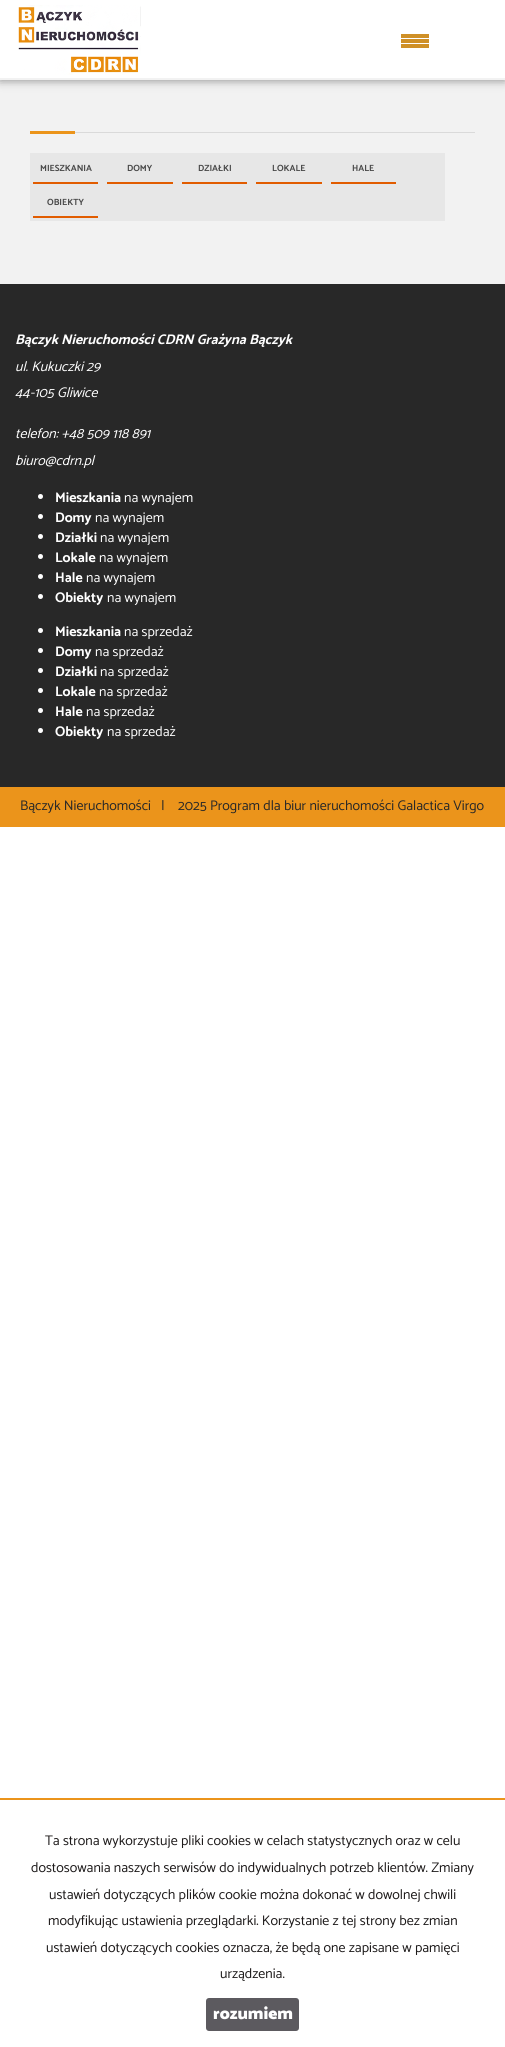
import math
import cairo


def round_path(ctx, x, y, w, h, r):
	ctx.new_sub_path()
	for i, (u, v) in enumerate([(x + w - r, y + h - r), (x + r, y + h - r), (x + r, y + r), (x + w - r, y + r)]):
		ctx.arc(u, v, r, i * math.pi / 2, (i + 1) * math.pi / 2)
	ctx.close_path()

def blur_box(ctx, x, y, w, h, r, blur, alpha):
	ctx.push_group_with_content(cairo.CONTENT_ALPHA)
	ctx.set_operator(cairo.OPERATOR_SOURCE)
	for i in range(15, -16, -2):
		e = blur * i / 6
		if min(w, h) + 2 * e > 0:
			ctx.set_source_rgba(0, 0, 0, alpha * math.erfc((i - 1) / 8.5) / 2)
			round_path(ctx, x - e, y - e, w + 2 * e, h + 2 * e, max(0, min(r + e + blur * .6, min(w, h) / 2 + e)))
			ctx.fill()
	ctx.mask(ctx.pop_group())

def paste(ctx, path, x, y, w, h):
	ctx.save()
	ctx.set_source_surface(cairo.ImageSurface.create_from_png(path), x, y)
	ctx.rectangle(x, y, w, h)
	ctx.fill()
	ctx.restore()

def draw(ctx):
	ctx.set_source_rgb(1, 1, 1)
	ctx.paint()
	ctx.set_source_rgb(0.949, 0.949, 0.949)
	ctx.rectangle(0, 80, 505, 204)
	ctx.fill()
	ctx.set_source_rgb(0, 0, 0)
	blur_box(ctx, 0, 0, 505, 80, 0, 5, 0.46)
	ctx.set_source_rgb(1, 1, 1)
	ctx.rectangle(0, 0, 505, 78)
	ctx.fill()
	ctx.set_source_rgb(0.949, 0.949, 0.949)
	ctx.rectangle(0, 78, 505, 2)
	ctx.fill()
	paste(ctx, 'media/1.png', 18, 5, 123, 70)
	ctx.set_source_rgb(0.812, 0.565, 0.153)
	ctx.rectangle(401, 34, 28, 4)
	ctx.rectangle(401, 39, 28, 4)
	ctx.rectangle(401, 44, 28, 4)
	ctx.fill()
	ctx.set_source_rgb(0.855, 0.855, 0.855)
	ctx.rectangle(75, 132, 400, 1)
	ctx.fill()
	ctx.set_source_rgb(0.918, 0.58, 0.106)
	ctx.rectangle(30, 131, 45, 3)
	ctx.fill()
	ctx.set_source_rgb(0.906, 0.906, 0.906)
	ctx.rectangle(30, 153, 415, 68)
	ctx.fill()
	ctx.set_source_rgb(0.882, 0.361, 0)
	ctx.rectangle(33, 182, 65, 2)
	ctx.fill()
	ctx.select_font_face('Catamaran', cairo.FONT_SLANT_NORMAL, cairo.FONT_WEIGHT_BOLD)
	ctx.set_font_size(9)
	ctx.set_source_rgb(0.29, 0.29, 0.29)
	ctx.move_to(40, 171)
	ctx.show_text('MIESZKANIA')
	ctx.set_source_rgb(0.882, 0.361, 0)
	ctx.rectangle(107, 182, 66, 2)
	ctx.fill()
	ctx.set_source_rgb(0.29, 0.29, 0.29)
	ctx.move_to(127, 171)
	ctx.show_text('DOMY')
	ctx.set_source_rgb(0.882, 0.361, 0)
	ctx.rectangle(182, 182, 65, 2)
	ctx.fill()
	ctx.set_source_rgb(0.29, 0.29, 0.29)
	ctx.move_to(198, 171)
	ctx.show_text('DZIAŁKI')
	ctx.set_source_rgb(0.882, 0.361, 0)
	ctx.rectangle(256, 182, 66, 2)
	ctx.fill()
	ctx.set_source_rgb(0.29, 0.29, 0.29)
	ctx.move_to(272, 171)
	ctx.show_text('LOKALE')
	ctx.set_source_rgb(0.882, 0.361, 0)
	ctx.rectangle(331, 182, 65, 2)
	ctx.fill()
	ctx.set_source_rgb(0.29, 0.29, 0.29)
	ctx.move_to(352, 171)
	ctx.show_text('HALE')
	ctx.set_source_rgb(0.882, 0.361, 0)
	ctx.rectangle(33, 216, 65, 2)
	ctx.fill()
	ctx.set_source_rgb(0.29, 0.29, 0.29)
	ctx.move_to(47, 205)
	ctx.show_text('OBIEKTY')
	ctx.set_source_rgb(0.157, 0.157, 0.157)
	ctx.rectangle(0, 284, 505, 503)
	ctx.fill()
	ctx.select_font_face('Catamaran', cairo.FONT_SLANT_ITALIC, cairo.FONT_WEIGHT_BOLD)
	ctx.set_font_size(14)
	ctx.set_source_rgb(1, 1, 1)
	ctx.move_to(15, 344)
	ctx.show_text('Bączyk Nieruchomości CDRN Grażyna Bączyk')
	ctx.select_font_face('Catamaran', cairo.FONT_SLANT_ITALIC)
	for x, y, s in [
		(15, 371, 'ul. Kukuczki 29'),
		(15, 397, '44-105 Gliwice'),
		(15, 438, 'telefon: +48 509 118 891'),
		(15, 465, 'biuro@cdrn.pl'),
	]:
		ctx.move_to(x, y)
		ctx.show_text(s)
	ctx.new_path()
	ctx.arc(40.5, 496.5, 2.5, 0, 2 * math.pi)
	ctx.fill()
	ctx.select_font_face('Catamaran', cairo.FONT_SLANT_NORMAL, cairo.FONT_WEIGHT_BOLD)
	ctx.move_to(55, 502)
	ctx.show_text('Mieszkania')
	ctx.select_font_face('Catamaran')
	ctx.move_to(124, 502)
	ctx.show_text('na wynajem')
	ctx.new_path()
	ctx.arc(40.5, 516.5, 2.5, 0, 2 * math.pi)
	ctx.fill()
	ctx.select_font_face('Catamaran', cairo.FONT_SLANT_NORMAL, cairo.FONT_WEIGHT_BOLD)
	ctx.move_to(55, 522)
	ctx.show_text('Domy')
	ctx.select_font_face('Catamaran')
	ctx.move_to(95, 522)
	ctx.show_text('na wynajem')
	ctx.new_path()
	ctx.arc(40.5, 536.5, 2.5, 0, 2 * math.pi)
	ctx.fill()
	ctx.select_font_face('Catamaran', cairo.FONT_SLANT_NORMAL, cairo.FONT_WEIGHT_BOLD)
	ctx.move_to(55, 542)
	ctx.show_text('Działki')
	ctx.select_font_face('Catamaran')
	ctx.move_to(100, 542)
	ctx.show_text('na wynajem')
	ctx.new_path()
	ctx.arc(40.5, 556.5, 2.5, 0, 2 * math.pi)
	ctx.fill()
	ctx.select_font_face('Catamaran', cairo.FONT_SLANT_NORMAL, cairo.FONT_WEIGHT_BOLD)
	ctx.move_to(55, 562)
	ctx.show_text('Lokale')
	ctx.select_font_face('Catamaran')
	ctx.move_to(99, 562)
	ctx.show_text('na wynajem')
	ctx.new_path()
	ctx.arc(40.5, 576.5, 2.5, 0, 2 * math.pi)
	ctx.fill()
	ctx.select_font_face('Catamaran', cairo.FONT_SLANT_NORMAL, cairo.FONT_WEIGHT_BOLD)
	ctx.move_to(55, 582)
	ctx.show_text('Hale')
	ctx.select_font_face('Catamaran')
	ctx.move_to(86, 582)
	ctx.show_text('na wynajem')
	ctx.new_path()
	ctx.arc(40.5, 596.5, 2.5, 0, 2 * math.pi)
	ctx.fill()
	ctx.select_font_face('Catamaran', cairo.FONT_SLANT_NORMAL, cairo.FONT_WEIGHT_BOLD)
	ctx.move_to(55, 602)
	ctx.show_text('Obiekty')
	ctx.select_font_face('Catamaran')
	ctx.move_to(107, 602)
	ctx.show_text('na wynajem')
	ctx.new_path()
	ctx.arc(40.5, 630.5, 2.5, 0, 2 * math.pi)
	ctx.fill()
	ctx.select_font_face('Catamaran', cairo.FONT_SLANT_NORMAL, cairo.FONT_WEIGHT_BOLD)
	ctx.move_to(55, 636)
	ctx.show_text('Mieszkania')
	ctx.select_font_face('Catamaran')
	ctx.move_to(124, 636)
	ctx.show_text('na sprzedaż')
	ctx.new_path()
	ctx.arc(40.5, 650.5, 2.5, 0, 2 * math.pi)
	ctx.fill()
	ctx.select_font_face('Catamaran', cairo.FONT_SLANT_NORMAL, cairo.FONT_WEIGHT_BOLD)
	ctx.move_to(55, 656)
	ctx.show_text('Domy')
	ctx.select_font_face('Catamaran')
	ctx.move_to(95, 656)
	ctx.show_text('na sprzedaż')
	ctx.new_path()
	ctx.arc(40.5, 670.5, 2.5, 0, 2 * math.pi)
	ctx.fill()
	ctx.select_font_face('Catamaran', cairo.FONT_SLANT_NORMAL, cairo.FONT_WEIGHT_BOLD)
	ctx.move_to(55, 676)
	ctx.show_text('Działki')
	ctx.select_font_face('Catamaran')
	ctx.move_to(100, 676)
	ctx.show_text('na sprzedaż')
	ctx.new_path()
	ctx.arc(40.5, 690.5, 2.5, 0, 2 * math.pi)
	ctx.fill()
	ctx.select_font_face('Catamaran', cairo.FONT_SLANT_NORMAL, cairo.FONT_WEIGHT_BOLD)
	ctx.move_to(55, 696)
	ctx.show_text('Lokale')
	ctx.select_font_face('Catamaran')
	ctx.move_to(99, 696)
	ctx.show_text('na sprzedaż')
	ctx.new_path()
	ctx.arc(40.5, 710.5, 2.5, 0, 2 * math.pi)
	ctx.fill()
	ctx.select_font_face('Catamaran', cairo.FONT_SLANT_NORMAL, cairo.FONT_WEIGHT_BOLD)
	ctx.move_to(55, 716)
	ctx.show_text('Hale')
	ctx.select_font_face('Catamaran')
	ctx.move_to(86, 716)
	ctx.show_text('na sprzedaż')
	ctx.new_path()
	ctx.arc(40.5, 730.5, 2.5, 0, 2 * math.pi)
	ctx.fill()
	ctx.select_font_face('Catamaran', cairo.FONT_SLANT_NORMAL, cairo.FONT_WEIGHT_BOLD)
	ctx.move_to(55, 736)
	ctx.show_text('Obiekty')
	ctx.select_font_face('Catamaran')
	ctx.move_to(107, 736)
	ctx.show_text('na sprzedaż')
	ctx.set_source_rgb(0.918, 0.58, 0.106)
	ctx.rectangle(0, 787, 505, 40)
	ctx.fill()
	ctx.set_source_rgb(0.157, 0.157, 0.157)
	for x, y, s in [
		(20, 810, 'Bączyk Nieruchomości'),
		(161, 810, '|'),
		(178, 810, '2025 Program dla biur nieruchomości Galactica Virgo'),
	]:
		ctx.move_to(x, y)
		ctx.show_text(s)
	ctx.set_source_rgb(0.918, 0.58, 0.106)
	ctx.rectangle(0, 1798, 505, 2)
	ctx.fill()
	ctx.set_source_rgb(0.118, 0.106, 0.106)
	for x, y, s in [
		(45, 1845, 'Ta strona wykorzystuje pliki cookies w celach statystycznych oraz w celu'),
		(31, 1872, 'dostosowania naszych serwisów do indywidualnych potrzeb klientów. Zmiany'),
		(49, 1899, 'ustawień dotyczących plików cookie można dokonać w dowolnej chwili'),
		(48, 1925, 'modyfikując ustawienia przeglądarki. Korzystanie z tej strony bez zmian'),
		(46, 1952, 'ustawień dotyczących cookies oznacza, że będą one zapisane w pamięci'),
		(220, 1978, 'urządzenia.'),
	]:
		ctx.move_to(x, y)
		ctx.show_text(s)
	ctx.set_source_rgb(0.361, 0.353, 0.373)
	round_path(ctx, 207.5, 1999.5, 90, 30, 1.5)
	ctx.fill_preserve()
	ctx.set_line_width(3)
	ctx.stroke()
	ctx.select_font_face('Catamaran Black')
	ctx.set_font_size(17)
	ctx.set_source_rgb(1, 1, 1)
	ctx.move_to(213, 2019)
	ctx.show_text('rozumiem')


surface = cairo.ImageSurface(cairo.FORMAT_RGB24, 505, 2047)
ctx = cairo.Context(surface)
options = cairo.FontOptions()
options.set_hint_metrics(cairo.HINT_METRICS_OFF)
options.set_hint_style(cairo.HINT_STYLE_NONE)
ctx.set_font_options(options)
ctx.set_miter_limit(4)
draw(ctx)
surface.write_to_png('image.png')
